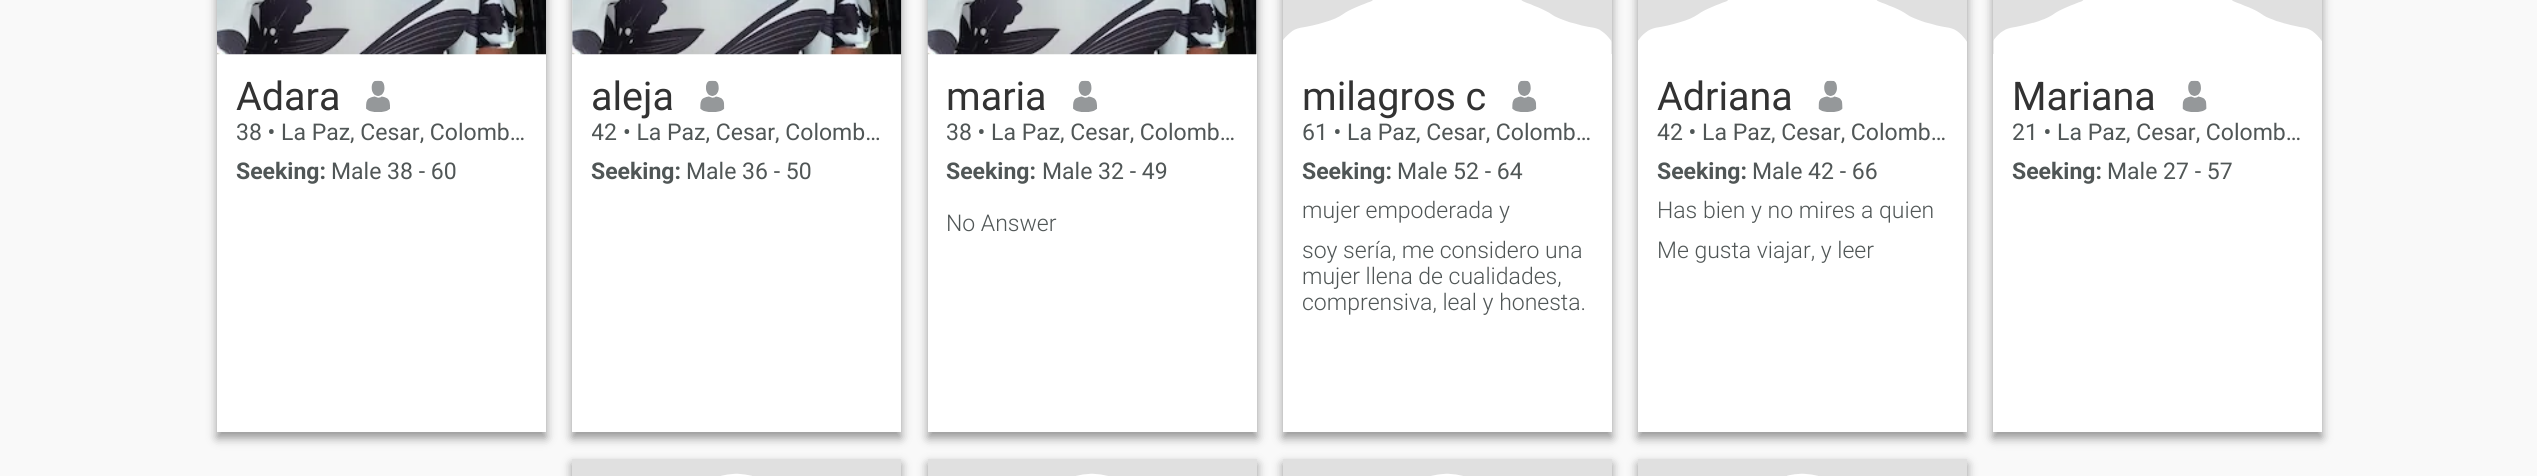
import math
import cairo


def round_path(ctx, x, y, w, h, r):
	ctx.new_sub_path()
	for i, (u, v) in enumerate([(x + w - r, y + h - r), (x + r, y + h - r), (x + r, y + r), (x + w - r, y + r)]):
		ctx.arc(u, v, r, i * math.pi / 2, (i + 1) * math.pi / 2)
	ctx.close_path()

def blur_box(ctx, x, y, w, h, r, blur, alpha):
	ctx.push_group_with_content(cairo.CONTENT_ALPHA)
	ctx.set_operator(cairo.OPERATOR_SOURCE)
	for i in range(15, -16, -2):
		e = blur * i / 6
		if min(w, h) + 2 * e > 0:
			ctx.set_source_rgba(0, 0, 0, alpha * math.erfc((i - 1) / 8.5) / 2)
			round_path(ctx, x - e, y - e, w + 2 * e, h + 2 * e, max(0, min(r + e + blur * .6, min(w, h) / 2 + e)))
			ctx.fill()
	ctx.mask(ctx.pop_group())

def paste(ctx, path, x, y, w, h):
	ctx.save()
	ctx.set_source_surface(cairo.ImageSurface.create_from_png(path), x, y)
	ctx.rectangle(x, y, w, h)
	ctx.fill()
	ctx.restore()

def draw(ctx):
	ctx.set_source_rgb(0.973, 0.973, 0.973)
	ctx.paint()
	ctx.set_source_rgb(0, 0, 0)
	blur_box(ctx, 217, -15, 329, 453, 0, 5, 0.4)
	ctx.set_source_rgb(1, 1, 1)
	ctx.rectangle(217, 54, 329, 378)
	ctx.fill()
	paste(ctx, 'media/1.png', 217, 0, 329, 55)
	ctx.select_font_face('Roboto')
	ctx.set_font_size(39.5)
	ctx.set_source_rgb(0.196, 0.196, 0.196)
	ctx.move_to(236, 110)
	ctx.show_text('Adara')
	paste(ctx, 'media/2.png', 366, 80, 24, 32)
	ctx.set_font_size(23)
	ctx.set_source_rgb(0.314, 0.337, 0.337)
	ctx.move_to(236, 140)
	ctx.show_text('38 • La Paz, Cesar, Colomb…')
	ctx.select_font_face('Roboto', cairo.FONT_SLANT_NORMAL, cairo.FONT_WEIGHT_BOLD)
	ctx.move_to(236, 179)
	ctx.show_text('Seeking:')
	ctx.select_font_face('Roboto')
	ctx.move_to(331, 179)
	ctx.show_text('Male 38 - 60')
	ctx.set_source_rgb(0, 0, 0)
	blur_box(ctx, 572, -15, 329, 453, 0, 5, 0.4)
	ctx.set_source_rgb(1, 1, 1)
	ctx.rectangle(572, 54, 329, 378)
	ctx.fill()
	ctx.set_source_rgb(0.878, 0.878, 0.878)
	ctx.rectangle(572, 0, 1, 54)
	ctx.fill()
	paste(ctx, 'media/3.png', 572, 0, 330, 55)
	ctx.set_font_size(39.5)
	ctx.set_source_rgb(0.196, 0.196, 0.196)
	ctx.move_to(591, 110)
	ctx.show_text('aleja')
	paste(ctx, 'media/4.png', 700, 80, 25, 32)
	ctx.save()
	ctx.rectangle(592, 119, 288, 26)
	ctx.clip()
	ctx.set_font_size(23)
	ctx.set_source_rgb(0.314, 0.337, 0.337)
	ctx.move_to(591, 140)
	ctx.show_text('42')
	ctx.restore()
	ctx.set_font_size(23)
	ctx.set_source_rgb(0.314, 0.337, 0.337)
	ctx.move_to(623, 140)
	ctx.show_text('• La Paz, Cesar, Colomb…')
	ctx.select_font_face('Roboto', cairo.FONT_SLANT_NORMAL, cairo.FONT_WEIGHT_BOLD)
	ctx.move_to(591, 179)
	ctx.show_text('Seeking:')
	ctx.select_font_face('Roboto')
	ctx.move_to(686, 179)
	ctx.show_text('Male 36 - 50')
	ctx.set_source_rgb(0, 0, 0)
	blur_box(ctx, 928, -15, 329, 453, 0, 5, 0.4)
	ctx.set_source_rgb(1, 1, 1)
	ctx.rectangle(928, 54, 329, 378)
	ctx.fill()
	ctx.set_source_rgb(0.878, 0.878, 0.878)
	ctx.rectangle(1256, 0, 1, 54)
	ctx.fill()
	paste(ctx, 'media/5.png', 927, 0, 330, 55)
	ctx.set_font_size(39.5)
	ctx.set_source_rgb(0.196, 0.196, 0.196)
	ctx.move_to(946, 110)
	ctx.show_text('maria')
	paste(ctx, 'media/2.png', 1073, 80, 24, 32)
	ctx.set_font_size(23)
	ctx.set_source_rgb(0.314, 0.337, 0.337)
	ctx.move_to(946, 140)
	ctx.show_text('38 • La Paz, Cesar, Colomb…')
	ctx.select_font_face('Roboto', cairo.FONT_SLANT_NORMAL, cairo.FONT_WEIGHT_BOLD)
	ctx.move_to(946, 179)
	ctx.show_text('Seeking:')
	ctx.select_font_face('Roboto')
	ctx.move_to(1042, 179)
	ctx.show_text('Male 32 - 49')
	ctx.select_font_face('Roboto Light')
	ctx.move_to(946, 231)
	ctx.show_text('No Answer')
	ctx.set_source_rgb(0, 0, 0)
	blur_box(ctx, 1283, -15, 329, 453, 0, 5, 0.4)
	ctx.set_source_rgb(1, 1, 1)
	ctx.rectangle(1283, 54, 329, 378)
	ctx.fill()
	ctx.set_source_rgb(0.878, 0.878, 0.878)
	ctx.rectangle(1283, 0, 329, 54)
	ctx.fill()
	paste(ctx, 'media/6.png', 1283, 0, 329, 54)
	ctx.select_font_face('Roboto')
	ctx.set_font_size(39.5)
	ctx.set_source_rgb(0.196, 0.196, 0.196)
	ctx.move_to(1302, 110)
	ctx.show_text('milagros c')
	paste(ctx, 'media/7.png', 1512, 80, 25, 32)
	ctx.set_font_size(23)
	ctx.set_source_rgb(0.314, 0.337, 0.337)
	ctx.move_to(1302, 140)
	ctx.show_text('61 • La Paz, Cesar, Colomb…')
	ctx.select_font_face('Roboto', cairo.FONT_SLANT_NORMAL, cairo.FONT_WEIGHT_BOLD)
	ctx.move_to(1302, 179)
	ctx.show_text('Seeking:')
	ctx.select_font_face('Roboto')
	ctx.move_to(1397, 179)
	ctx.show_text('Male 52 - 64')
	ctx.select_font_face('Roboto Light')
	for x, y, s in [
		(1302, 218, 'mujer empoderada y'),
		(1302, 258, 'soy sería, me considero una'),
		(1302, 284, 'mujer llena de cualidades,'),
		(1302, 310, 'comprensiva, leal y honesta.'),
	]:
		ctx.move_to(x, y)
		ctx.show_text(s)
	ctx.set_source_rgb(0, 0, 0)
	blur_box(ctx, 1638, -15, 329, 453, 0, 5, 0.4)
	ctx.set_source_rgb(1, 1, 1)
	ctx.rectangle(1638, 54, 329, 378)
	ctx.fill()
	ctx.set_source_rgb(0.878, 0.878, 0.878)
	ctx.rectangle(1638, 0, 329, 42)
	ctx.fill()
	paste(ctx, 'media/8.png', 1638, 0, 329, 54)
	ctx.select_font_face('Roboto')
	ctx.set_font_size(39.5)
	ctx.set_source_rgb(0.196, 0.196, 0.196)
	ctx.move_to(1657, 110)
	ctx.show_text('Adriana')
	paste(ctx, 'media/9.png', 1818, 80, 25, 32)
	ctx.set_font_size(23)
	ctx.set_source_rgb(0.314, 0.337, 0.337)
	ctx.move_to(1657, 140)
	ctx.show_text('42 • La Paz, Cesar, Colomb…')
	ctx.select_font_face('Roboto', cairo.FONT_SLANT_NORMAL, cairo.FONT_WEIGHT_BOLD)
	ctx.move_to(1657, 179)
	ctx.show_text('Seeking:')
	ctx.select_font_face('Roboto')
	ctx.move_to(1752, 179)
	ctx.show_text('Male 42 - 66')
	ctx.select_font_face('Roboto Light')
	ctx.move_to(1657, 218)
	ctx.show_text('Has bien y no mires a quien')
	ctx.move_to(1657, 258)
	ctx.show_text('Me gusta viajar, y leer')
	ctx.set_source_rgb(0, 0, 0)
	blur_box(ctx, 1993, -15, 329, 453, 0, 5, 0.4)
	ctx.set_source_rgb(1, 1, 1)
	ctx.rectangle(1993, 54, 329, 378)
	ctx.fill()
	ctx.set_source_rgb(0.878, 0.878, 0.878)
	ctx.rectangle(1993, 0, 329, 54)
	ctx.fill()
	paste(ctx, 'media/10.png', 1993, 0, 329, 54)
	ctx.select_font_face('Roboto')
	ctx.set_font_size(39.5)
	ctx.set_source_rgb(0.196, 0.196, 0.196)
	ctx.move_to(2012, 110)
	ctx.show_text('Mariana')
	paste(ctx, 'media/9.png', 2182, 80, 25, 32)
	ctx.set_font_size(23)
	ctx.set_source_rgb(0.314, 0.337, 0.337)
	ctx.move_to(2012, 140)
	ctx.show_text('21 • La Paz, Cesar, Colomb…')
	ctx.select_font_face('Roboto', cairo.FONT_SLANT_NORMAL, cairo.FONT_WEIGHT_BOLD)
	ctx.move_to(2012, 179)
	ctx.show_text('Seeking:')
	ctx.select_font_face('Roboto')
	ctx.move_to(2107, 179)
	ctx.show_text('Male 27 - 57')
	ctx.set_source_rgb(0, 0, 0)
	blur_box(ctx, 572, 464, 329, 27, 0, 5, 0.4)
	ctx.set_source_rgb(0.878, 0.878, 0.878)
	ctx.rectangle(572, 459, 329, 17)
	ctx.fill()
	paste(ctx, 'media/11.png', 721, 473, 31, 3)
	ctx.set_source_rgb(0, 0, 0)
	blur_box(ctx, 928, 464, 329, 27, 0, 5, 0.4)
	ctx.set_source_rgb(0.878, 0.878, 0.878)
	ctx.rectangle(928, 459, 329, 17)
	ctx.fill()
	paste(ctx, 'media/12.png', 1076, 473, 32, 3)
	ctx.set_source_rgb(0, 0, 0)
	blur_box(ctx, 1283, 464, 329, 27, 0, 5, 0.4)
	ctx.set_source_rgb(0.878, 0.878, 0.878)
	ctx.rectangle(1283, 459, 329, 17)
	ctx.fill()
	paste(ctx, 'media/13.png', 1431, 473, 32, 3)
	ctx.set_source_rgb(0, 0, 0)
	blur_box(ctx, 1638, 464, 329, 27, 0, 5, 0.4)
	ctx.set_source_rgb(0.878, 0.878, 0.878)
	ctx.rectangle(1638, 459, 329, 17)
	ctx.fill()
	paste(ctx, 'media/14.png', 1787, 473, 31, 3)


surface = cairo.ImageSurface(cairo.FORMAT_RGB24, 2537, 476)
ctx = cairo.Context(surface)
options = cairo.FontOptions()
options.set_hint_metrics(cairo.HINT_METRICS_OFF)
options.set_hint_style(cairo.HINT_STYLE_NONE)
ctx.set_font_options(options)
ctx.set_miter_limit(4)
draw(ctx)
surface.write_to_png('image.png')
